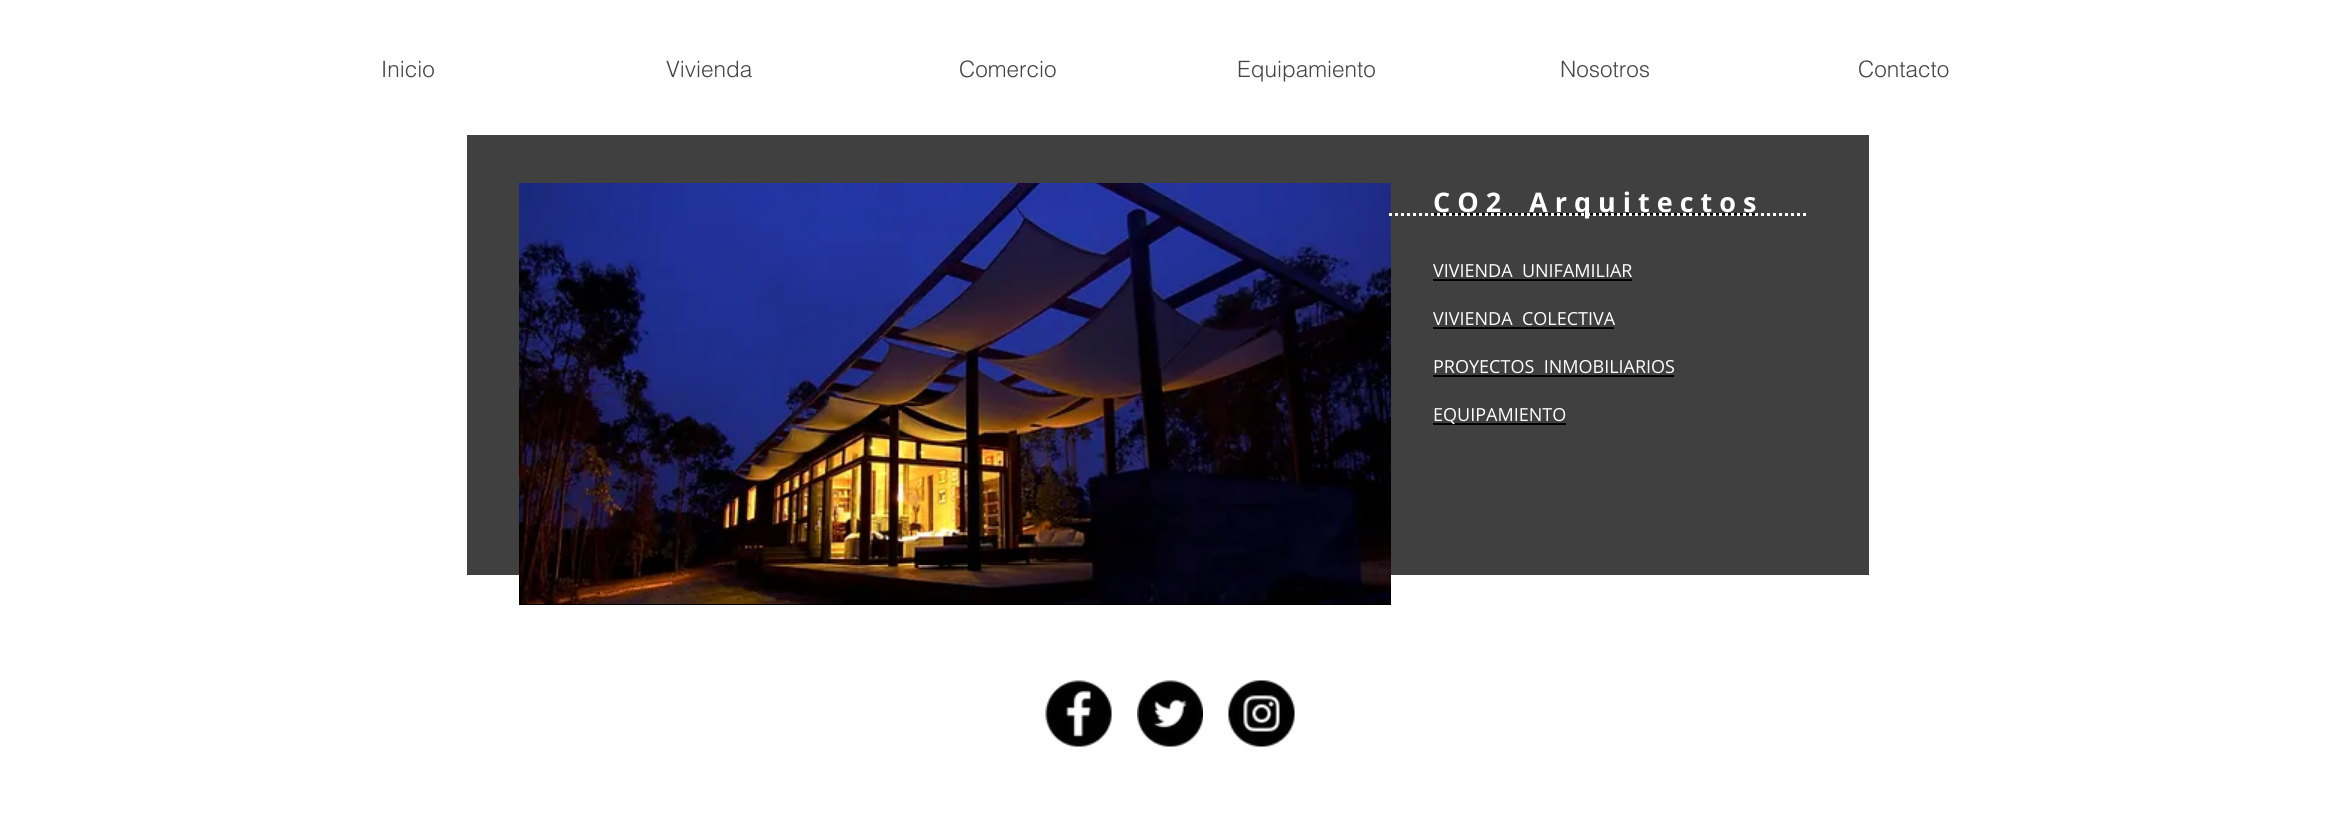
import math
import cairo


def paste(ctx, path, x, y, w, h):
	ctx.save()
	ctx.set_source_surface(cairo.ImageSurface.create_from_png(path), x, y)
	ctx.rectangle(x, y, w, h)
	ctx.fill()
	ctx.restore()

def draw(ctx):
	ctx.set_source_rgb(1, 1, 1)
	ctx.paint()
	ctx.select_font_face('helvetica Light')
	ctx.set_font_size(22.5)
	ctx.set_source_rgb(0.267, 0.267, 0.267)
	for x, y, s in [
		(381, 77, 'Inicio'),
		(666, 77, 'Vivienda'),
		(959, 77, 'Comercio'),
		(1237, 77, 'Equipamiento'),
		(1560, 77, 'Nosotros'),
		(1858, 77, 'Contacto'),
	]:
		ctx.move_to(x, y)
		ctx.show_text(s)
	ctx.set_source_rgb(0.251, 0.251, 0.251)
	ctx.rectangle(467, 135, 1402, 440)
	ctx.fill()
	ctx.set_source_rgb(0, 0, 0)
	ctx.rectangle(519, 604, 872, 1)
	ctx.fill()
	paste(ctx, 'media/1.png', 519, 183, 872, 421)
	ctx.select_font_face('Open Sans', cairo.FONT_SLANT_NORMAL, cairo.FONT_WEIGHT_BOLD)
	ctx.set_font_size(27)
	ctx.set_source_rgb(1, 1, 1)
	ctx.move_to(1433, 212)
	ctx.show_text('C O 2')
	ctx.set_source_rgb(0, 0, 0)
	ctx.rectangle(1433, 213, 324, 2)
	ctx.fill()
	ctx.set_source_rgb(1, 1, 1)
	ctx.move_to(1529, 212)
	ctx.show_text('A r q u i t e c t o s')
	ctx.select_font_face('Open Sans')
	ctx.set_font_size(18)
	ctx.move_to(1433, 277)
	ctx.show_text('VIVIENDA  UNIFAMILIAR')
	ctx.set_source_rgb(0, 0, 0)
	ctx.rectangle(1433, 279, 199, 2)
	ctx.fill()
	ctx.set_source_rgb(1, 1, 1)
	ctx.move_to(1433, 325)
	ctx.show_text('VIVIENDA  COLECTIVA')
	ctx.set_source_rgb(0, 0, 0)
	ctx.rectangle(1433, 327, 181, 2)
	ctx.fill()
	ctx.set_source_rgb(1, 1, 1)
	ctx.move_to(1433, 373)
	ctx.show_text('PROYECTOS  INMOBILIARIOS')
	ctx.set_source_rgb(0, 0, 0)
	ctx.rectangle(1433, 375, 241, 2)
	ctx.fill()
	ctx.rectangle(1433, 423, 133, 2)
	ctx.fill()
	ctx.set_source_rgb(1, 1, 1)
	ctx.move_to(1433, 421)
	ctx.show_text('EQUIPAMIENTO')
	ctx.new_path()
	ctx.move_to(1389, 214.5)
	ctx.line_to(1807.5, 214.5)
	ctx.set_line_width(3)
	ctx.set_dash([3, 3])
	ctx.stroke()
	paste(ctx, 'media/2.png', 1045, 680, 67, 67)
	paste(ctx, 'media/3.png', 1137, 680, 66, 67)
	paste(ctx, 'media/4.png', 1228, 680, 67, 67)


surface = cairo.ImageSurface(cairo.FORMAT_RGB24, 2342, 819)
ctx = cairo.Context(surface)
options = cairo.FontOptions()
options.set_hint_metrics(cairo.HINT_METRICS_OFF)
options.set_hint_style(cairo.HINT_STYLE_NONE)
ctx.set_font_options(options)
ctx.set_miter_limit(4)
draw(ctx)
surface.write_to_png('image.png')
